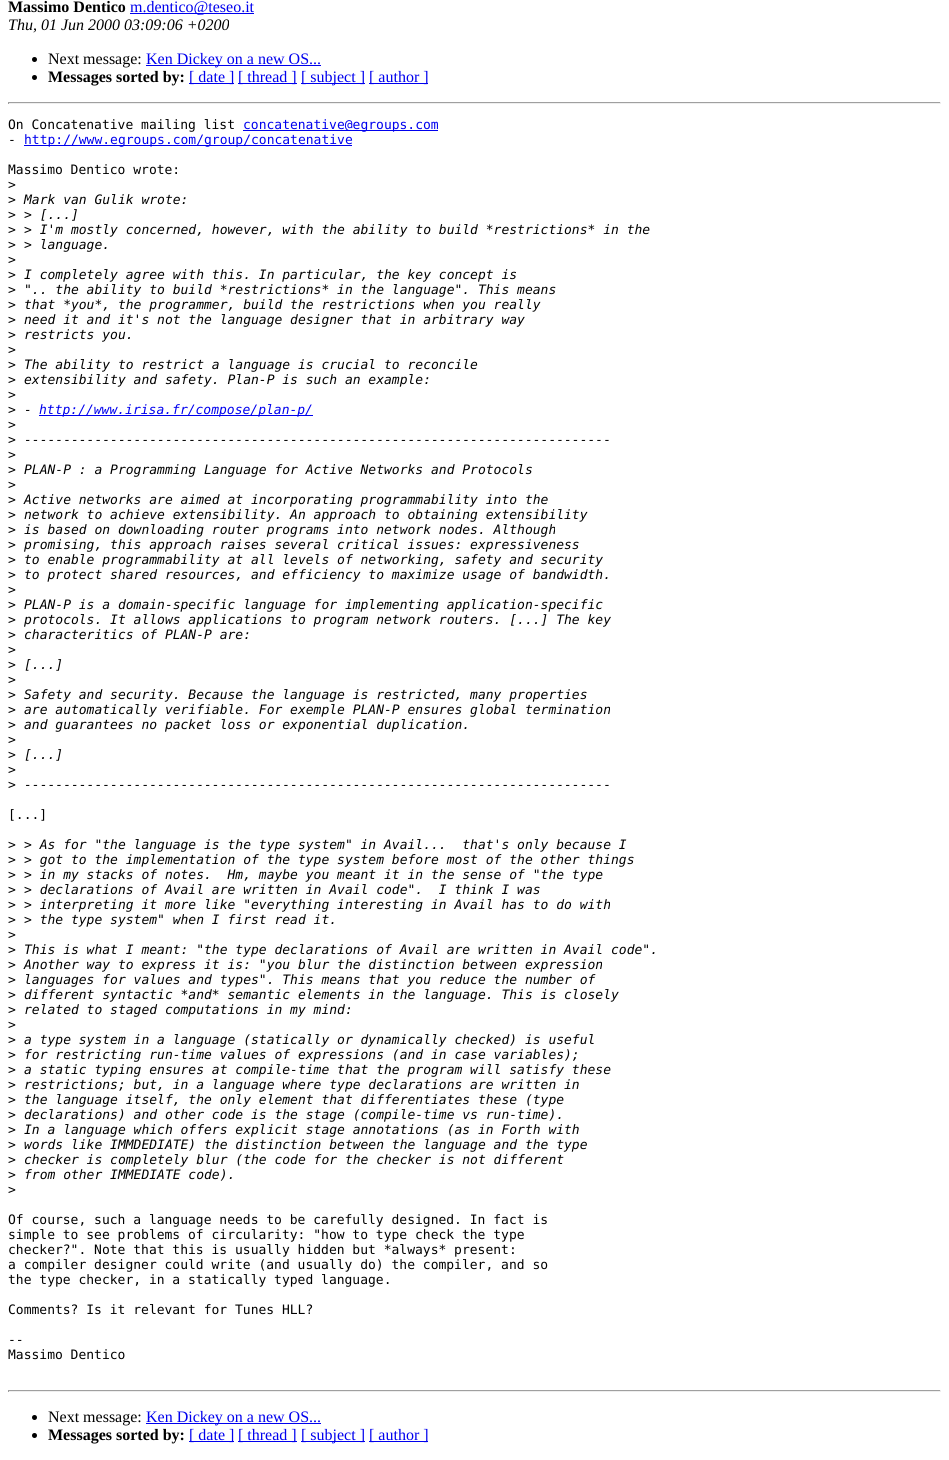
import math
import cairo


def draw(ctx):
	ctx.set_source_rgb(1, 1, 1)
	ctx.paint()
	ctx.select_font_face('Liberation Serif', cairo.FONT_SLANT_NORMAL, cairo.FONT_WEIGHT_BOLD)
	ctx.set_font_size(16)
	ctx.set_source_rgb(0, 0, 0)
	ctx.move_to(8, 12)
	ctx.show_text('Massimo Dentico')
	ctx.set_source_rgb(0, 0, 0.933)
	ctx.rectangle(130, 13, 124, 1)
	ctx.fill()
	ctx.select_font_face('Liberation Serif')
	ctx.move_to(130, 12)
	ctx.show_text('m.dentico@teseo.it')
	ctx.select_font_face('Liberation Serif', cairo.FONT_SLANT_ITALIC)
	ctx.set_source_rgb(0, 0, 0)
	ctx.move_to(8, 30)
	ctx.show_text('Thu, 01 Jun 2000 03:09:06 +0200')
	ctx.new_path()
	ctx.arc(34.5, 59.5, 2.5, 0, 2 * math.pi)
	ctx.fill()
	ctx.select_font_face('Liberation Serif')
	ctx.move_to(48, 64)
	ctx.show_text('Next message:')
	ctx.set_source_rgb(0, 0, 0.933)
	ctx.rectangle(146, 65, 175, 1)
	ctx.fill()
	ctx.move_to(146, 64)
	ctx.show_text('Ken Dickey on a new OS...')
	ctx.set_source_rgb(0, 0, 0)
	ctx.new_path()
	ctx.arc(34.5, 77.5, 2.5, 0, 2 * math.pi)
	ctx.fill()
	ctx.select_font_face('Liberation Serif', cairo.FONT_SLANT_NORMAL, cairo.FONT_WEIGHT_BOLD)
	ctx.move_to(48, 82)
	ctx.show_text('Messages sorted by:')
	ctx.set_source_rgb(0, 0, 0.933)
	ctx.rectangle(189, 83, 45, 1)
	ctx.fill()
	ctx.select_font_face('Liberation Serif')
	ctx.move_to(189, 82)
	ctx.show_text('[ date ]')
	ctx.rectangle(238, 83, 59, 1)
	ctx.fill()
	ctx.move_to(238, 82)
	ctx.show_text('[ thread ]')
	ctx.rectangle(301, 83, 64, 1)
	ctx.fill()
	ctx.move_to(301, 82)
	ctx.show_text('[ subject ]')
	ctx.rectangle(369, 83, 59, 1)
	ctx.fill()
	ctx.move_to(369, 82)
	ctx.show_text('[ author ]')
	ctx.set_source_rgb(0.624, 0.624, 0.624)
	ctx.rectangle(8, 102, 933, 1)
	ctx.fill()
	ctx.set_source_rgb(0.933, 0.933, 0.933)
	ctx.rectangle(940, 102, 1, 2)
	ctx.rectangle(8, 103, 933, 1)
	ctx.fill()
	ctx.set_source_rgb(0.624, 0.624, 0.624)
	ctx.rectangle(8, 102, 1, 2)
	ctx.fill()
	ctx.select_font_face('DejaVu Sans Mono')
	ctx.set_font_size(13)
	ctx.set_source_rgb(0, 0, 0)
	ctx.move_to(8, 129)
	ctx.show_text('On Concatenative mailing list')
	ctx.set_source_rgb(0, 0, 0.933)
	ctx.rectangle(243, 130, 195, 1)
	ctx.fill()
	ctx.move_to(243, 129)
	ctx.show_text('concatenative@egroups.com')
	ctx.set_source_rgb(0, 0, 0)
	ctx.move_to(8, 144)
	ctx.show_text('-')
	ctx.set_source_rgb(0, 0, 0.933)
	ctx.rectangle(24, 145, 328, 1)
	ctx.fill()
	ctx.move_to(24, 144)
	ctx.show_text('http://www.egroups.com/group/concatenative')
	ctx.set_source_rgb(0, 0, 0)
	for x, y, s in [
		(8, 174, 'Massimo Dentico wrote:'),
		(8, 189, '>'),
		(8, 204, '>'),
	]:
		ctx.move_to(x, y)
		ctx.show_text(s)
	ctx.select_font_face('DejaVu Sans Mono', cairo.FONT_SLANT_ITALIC)
	ctx.move_to(24, 204)
	ctx.show_text('Mark van Gulik wrote:')
	ctx.select_font_face('DejaVu Sans Mono')
	ctx.move_to(8, 219)
	ctx.show_text('>')
	ctx.select_font_face('DejaVu Sans Mono', cairo.FONT_SLANT_ITALIC)
	ctx.move_to(24, 219)
	ctx.show_text('> [...]')
	ctx.select_font_face('DejaVu Sans Mono')
	ctx.move_to(8, 234)
	ctx.show_text('>')
	ctx.select_font_face('DejaVu Sans Mono', cairo.FONT_SLANT_ITALIC)
	ctx.move_to(24, 234)
	ctx.show_text('> I\'m mostly concerned, however, with the ability to build *restrictions* in the')
	ctx.select_font_face('DejaVu Sans Mono')
	ctx.move_to(8, 249)
	ctx.show_text('>')
	ctx.select_font_face('DejaVu Sans Mono', cairo.FONT_SLANT_ITALIC)
	ctx.move_to(24, 249)
	ctx.show_text('> language.')
	ctx.select_font_face('DejaVu Sans Mono')
	ctx.move_to(8, 264)
	ctx.show_text('>')
	ctx.move_to(8, 279)
	ctx.show_text('>')
	ctx.select_font_face('DejaVu Sans Mono', cairo.FONT_SLANT_ITALIC)
	ctx.move_to(24, 279)
	ctx.show_text('I completely agree with this. In particular, the key concept is')
	ctx.select_font_face('DejaVu Sans Mono')
	ctx.move_to(8, 294)
	ctx.show_text('>')
	ctx.select_font_face('DejaVu Sans Mono', cairo.FONT_SLANT_ITALIC)
	ctx.move_to(24, 294)
	ctx.show_text('".. the ability to build *restrictions* in the language". This means')
	ctx.select_font_face('DejaVu Sans Mono')
	ctx.move_to(8, 309)
	ctx.show_text('>')
	ctx.select_font_face('DejaVu Sans Mono', cairo.FONT_SLANT_ITALIC)
	ctx.move_to(24, 309)
	ctx.show_text('that *you*, the programmer, build the restrictions when you really')
	ctx.select_font_face('DejaVu Sans Mono')
	ctx.move_to(8, 324)
	ctx.show_text('>')
	ctx.select_font_face('DejaVu Sans Mono', cairo.FONT_SLANT_ITALIC)
	ctx.move_to(24, 324)
	ctx.show_text('need it and it\'s not the language designer that in arbitrary way')
	ctx.select_font_face('DejaVu Sans Mono')
	ctx.move_to(8, 339)
	ctx.show_text('>')
	ctx.select_font_face('DejaVu Sans Mono', cairo.FONT_SLANT_ITALIC)
	ctx.move_to(24, 339)
	ctx.show_text('restricts you.')
	ctx.select_font_face('DejaVu Sans Mono')
	ctx.move_to(8, 354)
	ctx.show_text('>')
	ctx.move_to(8, 369)
	ctx.show_text('>')
	ctx.select_font_face('DejaVu Sans Mono', cairo.FONT_SLANT_ITALIC)
	ctx.move_to(24, 369)
	ctx.show_text('The ability to restrict a language is crucial to reconcile')
	ctx.select_font_face('DejaVu Sans Mono')
	ctx.move_to(8, 384)
	ctx.show_text('>')
	ctx.select_font_face('DejaVu Sans Mono', cairo.FONT_SLANT_ITALIC)
	ctx.move_to(24, 384)
	ctx.show_text('extensibility and safety. Plan-P is such an example:')
	ctx.select_font_face('DejaVu Sans Mono')
	ctx.move_to(8, 399)
	ctx.show_text('>')
	ctx.move_to(8, 414)
	ctx.show_text('>')
	ctx.select_font_face('DejaVu Sans Mono', cairo.FONT_SLANT_ITALIC)
	ctx.move_to(24, 414)
	ctx.show_text('-')
	ctx.set_source_rgb(0, 0, 0.933)
	ctx.rectangle(39, 415, 274, 1)
	ctx.fill()
	ctx.move_to(39, 414)
	ctx.show_text('http://www.irisa.fr/compose/plan-p/')
	ctx.select_font_face('DejaVu Sans Mono')
	ctx.set_source_rgb(0, 0, 0)
	ctx.move_to(8, 429)
	ctx.show_text('>')
	ctx.move_to(8, 444)
	ctx.show_text('>')
	ctx.select_font_face('DejaVu Sans Mono', cairo.FONT_SLANT_ITALIC)
	ctx.move_to(24, 444)
	ctx.show_text('---------------------------------------------------------------------------')
	ctx.select_font_face('DejaVu Sans Mono')
	ctx.move_to(8, 459)
	ctx.show_text('>')
	ctx.move_to(8, 474)
	ctx.show_text('>')
	ctx.select_font_face('DejaVu Sans Mono', cairo.FONT_SLANT_ITALIC)
	ctx.move_to(24, 474)
	ctx.show_text('PLAN-P : a Programming Language for Active Networks and Protocols')
	ctx.select_font_face('DejaVu Sans Mono')
	ctx.move_to(8, 489)
	ctx.show_text('>')
	ctx.move_to(8, 504)
	ctx.show_text('>')
	ctx.select_font_face('DejaVu Sans Mono', cairo.FONT_SLANT_ITALIC)
	ctx.move_to(24, 504)
	ctx.show_text('Active networks are aimed at incorporating programmability into the')
	ctx.select_font_face('DejaVu Sans Mono')
	ctx.move_to(8, 519)
	ctx.show_text('>')
	ctx.select_font_face('DejaVu Sans Mono', cairo.FONT_SLANT_ITALIC)
	ctx.move_to(24, 519)
	ctx.show_text('network to achieve extensibility. An approach to obtaining extensibility')
	ctx.select_font_face('DejaVu Sans Mono')
	ctx.move_to(8, 534)
	ctx.show_text('>')
	ctx.select_font_face('DejaVu Sans Mono', cairo.FONT_SLANT_ITALIC)
	ctx.move_to(24, 534)
	ctx.show_text('is based on downloading router programs into network nodes. Although')
	ctx.select_font_face('DejaVu Sans Mono')
	ctx.move_to(8, 549)
	ctx.show_text('>')
	ctx.select_font_face('DejaVu Sans Mono', cairo.FONT_SLANT_ITALIC)
	ctx.move_to(24, 549)
	ctx.show_text('promising, this approach raises several critical issues: expressiveness')
	ctx.select_font_face('DejaVu Sans Mono')
	ctx.move_to(8, 564)
	ctx.show_text('>')
	ctx.select_font_face('DejaVu Sans Mono', cairo.FONT_SLANT_ITALIC)
	ctx.move_to(24, 564)
	ctx.show_text('to enable programmability at all levels of networking, safety and security')
	ctx.select_font_face('DejaVu Sans Mono')
	ctx.move_to(8, 579)
	ctx.show_text('>')
	ctx.select_font_face('DejaVu Sans Mono', cairo.FONT_SLANT_ITALIC)
	ctx.move_to(24, 579)
	ctx.show_text('to protect shared resources, and efficiency to maximize usage of bandwidth.')
	ctx.select_font_face('DejaVu Sans Mono')
	ctx.move_to(8, 594)
	ctx.show_text('>')
	ctx.move_to(8, 609)
	ctx.show_text('>')
	ctx.select_font_face('DejaVu Sans Mono', cairo.FONT_SLANT_ITALIC)
	ctx.move_to(24, 609)
	ctx.show_text('PLAN-P is a domain-specific language for implementing application-specific')
	ctx.select_font_face('DejaVu Sans Mono')
	ctx.move_to(8, 624)
	ctx.show_text('>')
	ctx.select_font_face('DejaVu Sans Mono', cairo.FONT_SLANT_ITALIC)
	ctx.move_to(24, 624)
	ctx.show_text('protocols. It allows applications to program network routers. [...] The key')
	ctx.select_font_face('DejaVu Sans Mono')
	ctx.move_to(8, 639)
	ctx.show_text('>')
	ctx.select_font_face('DejaVu Sans Mono', cairo.FONT_SLANT_ITALIC)
	ctx.move_to(24, 639)
	ctx.show_text('characteritics of PLAN-P are:')
	ctx.select_font_face('DejaVu Sans Mono')
	ctx.move_to(8, 654)
	ctx.show_text('>')
	ctx.move_to(8, 669)
	ctx.show_text('>')
	ctx.select_font_face('DejaVu Sans Mono', cairo.FONT_SLANT_ITALIC)
	ctx.move_to(24, 669)
	ctx.show_text('[...]')
	ctx.select_font_face('DejaVu Sans Mono')
	ctx.move_to(8, 684)
	ctx.show_text('>')
	ctx.move_to(8, 699)
	ctx.show_text('>')
	ctx.select_font_face('DejaVu Sans Mono', cairo.FONT_SLANT_ITALIC)
	ctx.move_to(24, 699)
	ctx.show_text('Safety and security. Because the language is restricted, many properties')
	ctx.select_font_face('DejaVu Sans Mono')
	ctx.move_to(8, 714)
	ctx.show_text('>')
	ctx.select_font_face('DejaVu Sans Mono', cairo.FONT_SLANT_ITALIC)
	ctx.move_to(24, 714)
	ctx.show_text('are automatically verifiable. For exemple PLAN-P ensures global termination')
	ctx.select_font_face('DejaVu Sans Mono')
	ctx.move_to(8, 729)
	ctx.show_text('>')
	ctx.select_font_face('DejaVu Sans Mono', cairo.FONT_SLANT_ITALIC)
	ctx.move_to(24, 729)
	ctx.show_text('and guarantees no packet loss or exponential duplication.')
	ctx.select_font_face('DejaVu Sans Mono')
	ctx.move_to(8, 744)
	ctx.show_text('>')
	ctx.move_to(8, 759)
	ctx.show_text('>')
	ctx.select_font_face('DejaVu Sans Mono', cairo.FONT_SLANT_ITALIC)
	ctx.move_to(24, 759)
	ctx.show_text('[...]')
	ctx.select_font_face('DejaVu Sans Mono')
	ctx.move_to(8, 774)
	ctx.show_text('>')
	ctx.move_to(8, 789)
	ctx.show_text('>')
	ctx.select_font_face('DejaVu Sans Mono', cairo.FONT_SLANT_ITALIC)
	ctx.move_to(24, 789)
	ctx.show_text('---------------------------------------------------------------------------')
	ctx.select_font_face('DejaVu Sans Mono')
	ctx.move_to(8, 819)
	ctx.show_text('[...]')
	ctx.move_to(8, 849)
	ctx.show_text('>')
	ctx.select_font_face('DejaVu Sans Mono', cairo.FONT_SLANT_ITALIC)
	ctx.move_to(24, 849)
	ctx.show_text('> As for "the language is the type system" in Avail...  that\'s only because I')
	ctx.select_font_face('DejaVu Sans Mono')
	ctx.move_to(8, 864)
	ctx.show_text('>')
	ctx.select_font_face('DejaVu Sans Mono', cairo.FONT_SLANT_ITALIC)
	ctx.move_to(24, 864)
	ctx.show_text('> got to the implementation of the type system before most of the other things')
	ctx.select_font_face('DejaVu Sans Mono')
	ctx.move_to(8, 879)
	ctx.show_text('>')
	ctx.select_font_face('DejaVu Sans Mono', cairo.FONT_SLANT_ITALIC)
	ctx.move_to(24, 879)
	ctx.show_text('> in my stacks of notes.  Hm, maybe you meant it in the sense of "the type')
	ctx.select_font_face('DejaVu Sans Mono')
	ctx.move_to(8, 894)
	ctx.show_text('>')
	ctx.select_font_face('DejaVu Sans Mono', cairo.FONT_SLANT_ITALIC)
	ctx.move_to(24, 894)
	ctx.show_text('> declarations of Avail are written in Avail code".  I think I was')
	ctx.select_font_face('DejaVu Sans Mono')
	ctx.move_to(8, 909)
	ctx.show_text('>')
	ctx.select_font_face('DejaVu Sans Mono', cairo.FONT_SLANT_ITALIC)
	ctx.move_to(24, 909)
	ctx.show_text('> interpreting it more like "everything interesting in Avail has to do with')
	ctx.select_font_face('DejaVu Sans Mono')
	ctx.move_to(8, 924)
	ctx.show_text('>')
	ctx.select_font_face('DejaVu Sans Mono', cairo.FONT_SLANT_ITALIC)
	ctx.move_to(24, 924)
	ctx.show_text('> the type system" when I first read it.')
	ctx.select_font_face('DejaVu Sans Mono')
	ctx.move_to(8, 939)
	ctx.show_text('>')
	ctx.move_to(8, 954)
	ctx.show_text('>')
	ctx.select_font_face('DejaVu Sans Mono', cairo.FONT_SLANT_ITALIC)
	ctx.move_to(24, 954)
	ctx.show_text('This is what I meant: "the type declarations of Avail are written in Avail code".')
	ctx.select_font_face('DejaVu Sans Mono')
	ctx.move_to(8, 969)
	ctx.show_text('>')
	ctx.select_font_face('DejaVu Sans Mono', cairo.FONT_SLANT_ITALIC)
	ctx.move_to(24, 969)
	ctx.show_text('Another way to express it is: "you blur the distinction between expression')
	ctx.select_font_face('DejaVu Sans Mono')
	ctx.move_to(8, 984)
	ctx.show_text('>')
	ctx.select_font_face('DejaVu Sans Mono', cairo.FONT_SLANT_ITALIC)
	ctx.move_to(24, 984)
	ctx.show_text('languages for values and types". This means that you reduce the number of')
	ctx.select_font_face('DejaVu Sans Mono')
	ctx.move_to(8, 999)
	ctx.show_text('>')
	ctx.select_font_face('DejaVu Sans Mono', cairo.FONT_SLANT_ITALIC)
	ctx.move_to(24, 999)
	ctx.show_text('different syntactic *and* semantic elements in the language. This is closely')
	ctx.select_font_face('DejaVu Sans Mono')
	ctx.move_to(8, 1014)
	ctx.show_text('>')
	ctx.select_font_face('DejaVu Sans Mono', cairo.FONT_SLANT_ITALIC)
	ctx.move_to(24, 1014)
	ctx.show_text('related to staged computations in my mind:')
	ctx.select_font_face('DejaVu Sans Mono')
	ctx.move_to(8, 1029)
	ctx.show_text('>')
	ctx.move_to(8, 1044)
	ctx.show_text('>')
	ctx.select_font_face('DejaVu Sans Mono', cairo.FONT_SLANT_ITALIC)
	ctx.move_to(24, 1044)
	ctx.show_text('a type system in a language (statically or dynamically checked) is useful')
	ctx.select_font_face('DejaVu Sans Mono')
	ctx.move_to(8, 1059)
	ctx.show_text('>')
	ctx.select_font_face('DejaVu Sans Mono', cairo.FONT_SLANT_ITALIC)
	ctx.move_to(24, 1059)
	ctx.show_text('for restricting run-time values of expressions (and in case variables);')
	ctx.select_font_face('DejaVu Sans Mono')
	ctx.move_to(8, 1074)
	ctx.show_text('>')
	ctx.select_font_face('DejaVu Sans Mono', cairo.FONT_SLANT_ITALIC)
	ctx.move_to(24, 1074)
	ctx.show_text('a static typing ensures at compile-time that the program will satisfy these')
	ctx.select_font_face('DejaVu Sans Mono')
	ctx.move_to(8, 1089)
	ctx.show_text('>')
	ctx.select_font_face('DejaVu Sans Mono', cairo.FONT_SLANT_ITALIC)
	ctx.move_to(24, 1089)
	ctx.show_text('restrictions; but, in a language where type declarations are written in')
	ctx.select_font_face('DejaVu Sans Mono')
	ctx.move_to(8, 1104)
	ctx.show_text('>')
	ctx.select_font_face('DejaVu Sans Mono', cairo.FONT_SLANT_ITALIC)
	ctx.move_to(24, 1104)
	ctx.show_text('the language itself, the only element that differentiates these (type')
	ctx.select_font_face('DejaVu Sans Mono')
	ctx.move_to(8, 1119)
	ctx.show_text('>')
	ctx.select_font_face('DejaVu Sans Mono', cairo.FONT_SLANT_ITALIC)
	ctx.move_to(24, 1119)
	ctx.show_text('declarations) and other code is the stage (compile-time vs run-time).')
	ctx.select_font_face('DejaVu Sans Mono')
	ctx.move_to(8, 1134)
	ctx.show_text('>')
	ctx.select_font_face('DejaVu Sans Mono', cairo.FONT_SLANT_ITALIC)
	ctx.move_to(24, 1134)
	ctx.show_text('In a language which offers explicit stage annotations (as in Forth with')
	ctx.select_font_face('DejaVu Sans Mono')
	ctx.move_to(8, 1149)
	ctx.show_text('>')
	ctx.select_font_face('DejaVu Sans Mono', cairo.FONT_SLANT_ITALIC)
	ctx.move_to(24, 1149)
	ctx.show_text('words like IMMDEDIATE) the distinction between the language and the type')
	ctx.select_font_face('DejaVu Sans Mono')
	ctx.move_to(8, 1164)
	ctx.show_text('>')
	ctx.select_font_face('DejaVu Sans Mono', cairo.FONT_SLANT_ITALIC)
	ctx.move_to(24, 1164)
	ctx.show_text('checker is completely blur (the code for the checker is not different')
	ctx.select_font_face('DejaVu Sans Mono')
	ctx.move_to(8, 1179)
	ctx.show_text('>')
	ctx.select_font_face('DejaVu Sans Mono', cairo.FONT_SLANT_ITALIC)
	ctx.move_to(24, 1179)
	ctx.show_text('from other IMMEDIATE code).')
	ctx.select_font_face('DejaVu Sans Mono')
	for x, y, s in [
		(8, 1194, '>'),
		(8, 1224, 'Of course, such a language needs to be carefully designed. In fact is'),
		(8, 1239, 'simple to see problems of circularity: "how to type check the type'),
		(8, 1254, 'checker?". Note that this is usually hidden but *always* present:'),
		(8, 1269, 'a compiler designer could write (and usually do) the compiler, and so'),
		(8, 1284, 'the type checker, in a statically typed language.'),
		(8, 1314, 'Comments? Is it relevant for Tunes HLL?'),
		(8, 1344, '--'),
		(8, 1359, 'Massimo Dentico'),
	]:
		ctx.move_to(x, y)
		ctx.show_text(s)
	ctx.set_source_rgb(0.624, 0.624, 0.624)
	ctx.rectangle(8, 1390, 933, 1)
	ctx.fill()
	ctx.set_source_rgb(0.933, 0.933, 0.933)
	ctx.rectangle(940, 1390, 1, 2)
	ctx.rectangle(8, 1391, 933, 1)
	ctx.fill()
	ctx.set_source_rgb(0.624, 0.624, 0.624)
	ctx.rectangle(8, 1390, 1, 2)
	ctx.fill()
	ctx.set_source_rgb(0, 0, 0)
	ctx.arc(34.5, 1417.5, 2.5, 0, 2 * math.pi)
	ctx.fill()
	ctx.select_font_face('Liberation Serif')
	ctx.set_font_size(16)
	ctx.move_to(48, 1422)
	ctx.show_text('Next message:')
	ctx.set_source_rgb(0, 0, 0.933)
	ctx.rectangle(146, 1423, 175, 1)
	ctx.fill()
	ctx.move_to(146, 1422)
	ctx.show_text('Ken Dickey on a new OS...')
	ctx.set_source_rgb(0, 0, 0)
	ctx.new_path()
	ctx.arc(34.5, 1435.5, 2.5, 0, 2 * math.pi)
	ctx.fill()
	ctx.select_font_face('Liberation Serif', cairo.FONT_SLANT_NORMAL, cairo.FONT_WEIGHT_BOLD)
	ctx.move_to(48, 1440)
	ctx.show_text('Messages sorted by:')
	ctx.set_source_rgb(0, 0, 0.933)
	ctx.rectangle(189, 1441, 45, 1)
	ctx.fill()
	ctx.select_font_face('Liberation Serif')
	ctx.move_to(189, 1440)
	ctx.show_text('[ date ]')
	ctx.rectangle(238, 1441, 59, 1)
	ctx.fill()
	ctx.move_to(238, 1440)
	ctx.show_text('[ thread ]')
	ctx.rectangle(301, 1441, 64, 1)
	ctx.fill()
	ctx.move_to(301, 1440)
	ctx.show_text('[ subject ]')
	ctx.rectangle(369, 1441, 59, 1)
	ctx.fill()
	ctx.move_to(369, 1440)
	ctx.show_text('[ author ]')


surface = cairo.ImageSurface(cairo.FORMAT_RGB24, 949, 1460)
ctx = cairo.Context(surface)
options = cairo.FontOptions()
options.set_hint_metrics(cairo.HINT_METRICS_OFF)
options.set_hint_style(cairo.HINT_STYLE_NONE)
ctx.set_font_options(options)
ctx.set_miter_limit(4)
draw(ctx)
surface.write_to_png('image.png')
